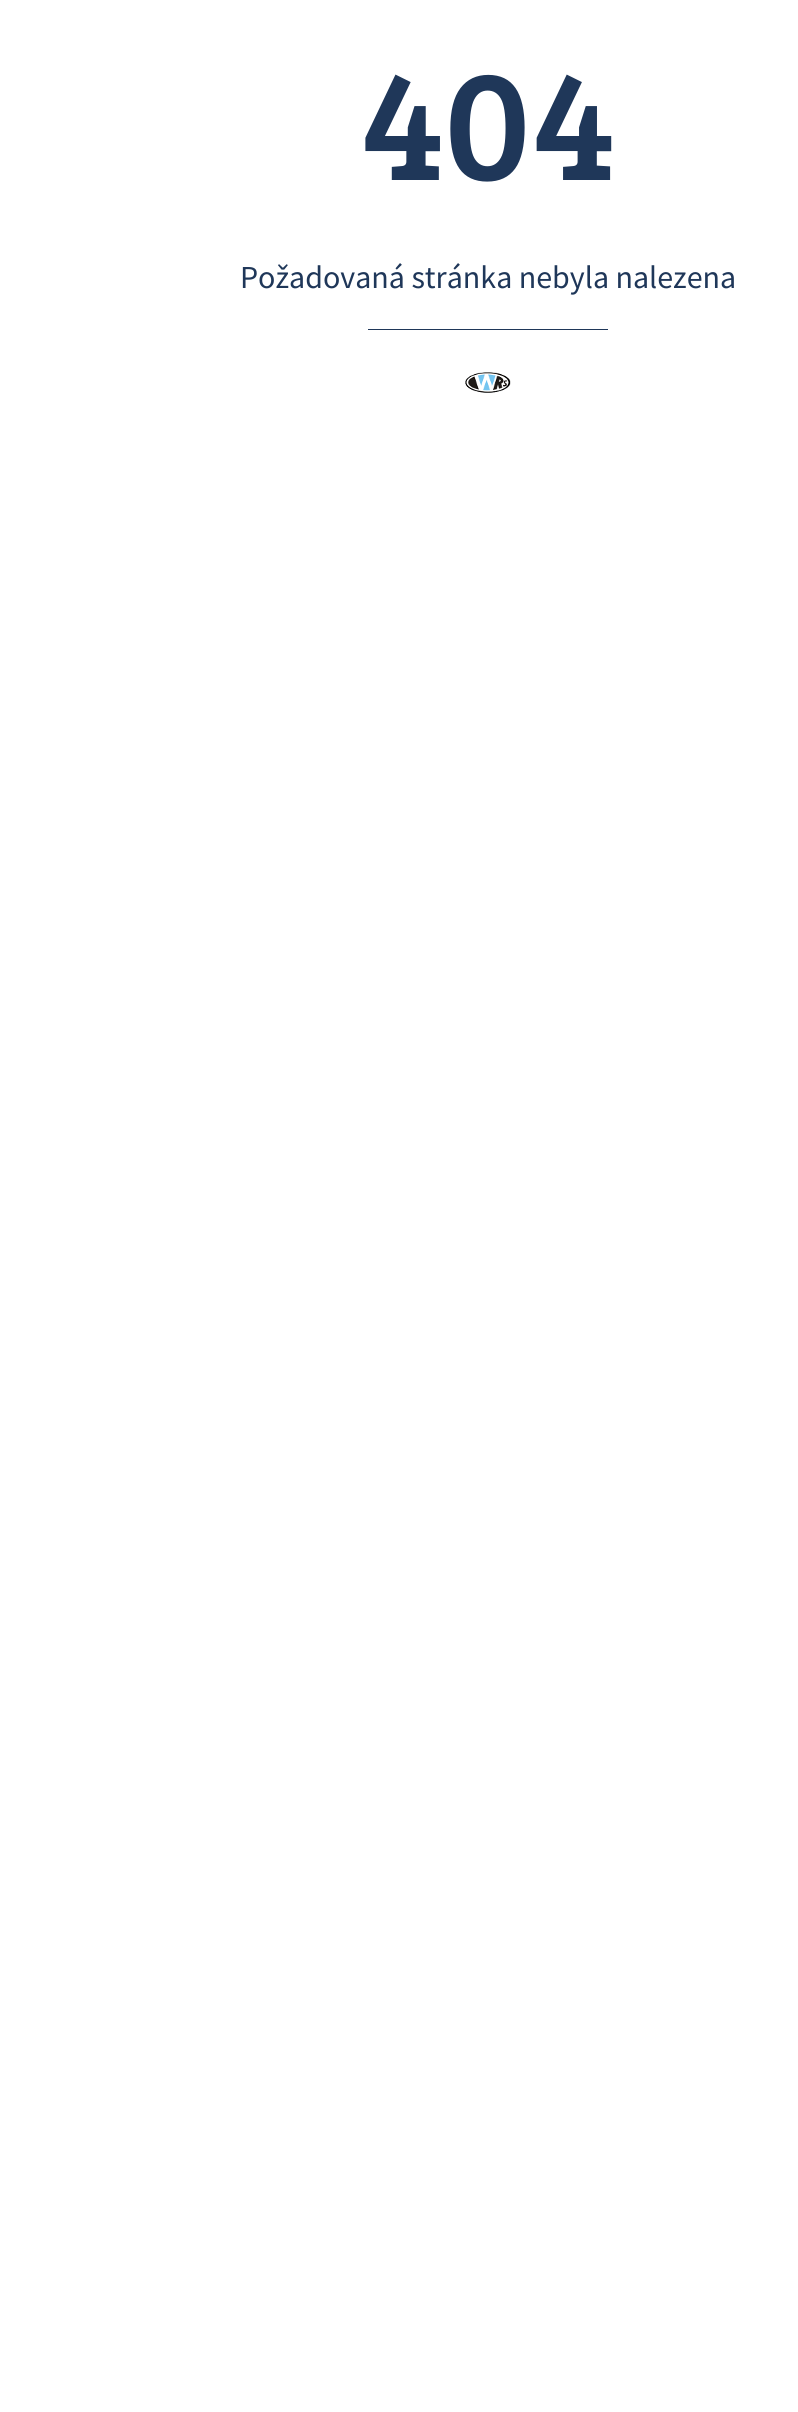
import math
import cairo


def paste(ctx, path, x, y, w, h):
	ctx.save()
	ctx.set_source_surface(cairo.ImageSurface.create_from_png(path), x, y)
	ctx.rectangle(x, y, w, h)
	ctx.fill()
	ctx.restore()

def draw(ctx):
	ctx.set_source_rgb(1, 1, 1)
	ctx.paint()
	ctx.select_font_face('Bree Serif')
	ctx.set_font_size(160)
	ctx.set_source_rgb(0.122, 0.216, 0.349)
	ctx.move_to(359, 180)
	ctx.show_text('404')
	ctx.select_font_face('Source Sans Pro')
	ctx.set_font_size(32)
	ctx.move_to(240, 288)
	ctx.show_text('Požadovaná stránka nebyla nalezena')
	ctx.rectangle(368, 329, 240, 1)
	ctx.fill()
	paste(ctx, 'media/1.png', 465, 372, 46, 21)


surface = cairo.ImageSurface(cairo.FORMAT_RGB24, 798, 2412)
ctx = cairo.Context(surface)
options = cairo.FontOptions()
options.set_hint_metrics(cairo.HINT_METRICS_OFF)
options.set_hint_style(cairo.HINT_STYLE_NONE)
ctx.set_font_options(options)
ctx.set_miter_limit(4)
draw(ctx)
surface.write_to_png('image.png')
